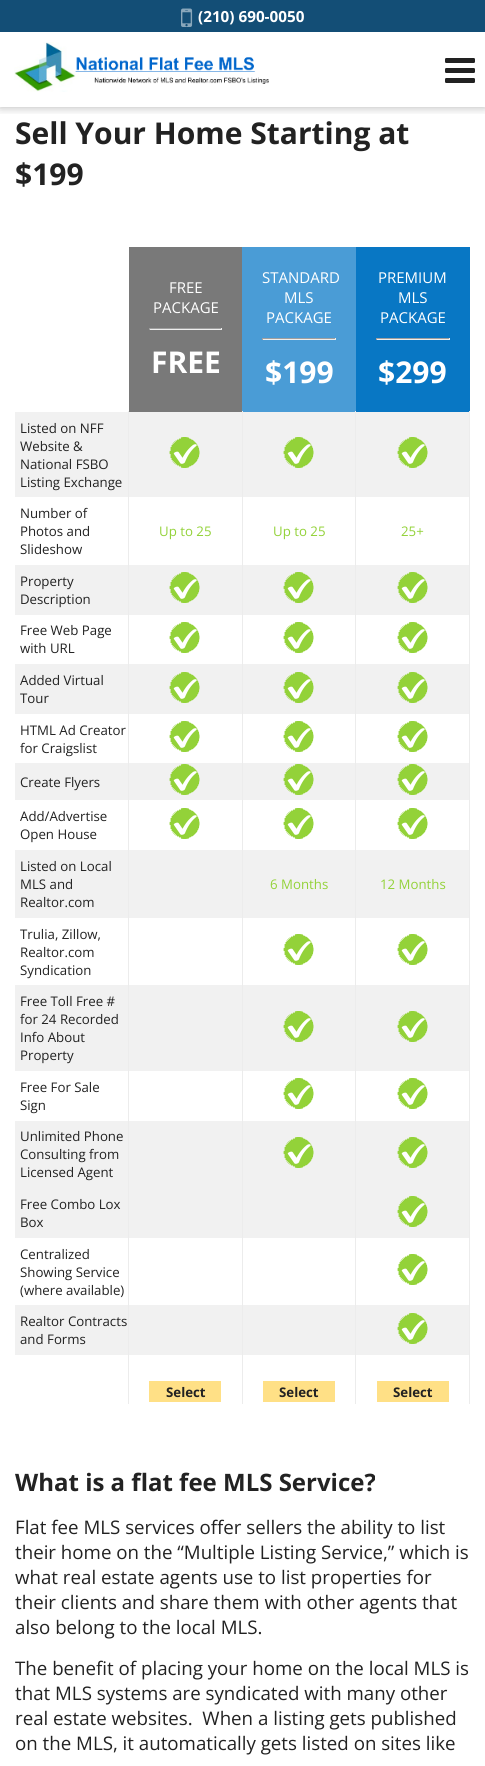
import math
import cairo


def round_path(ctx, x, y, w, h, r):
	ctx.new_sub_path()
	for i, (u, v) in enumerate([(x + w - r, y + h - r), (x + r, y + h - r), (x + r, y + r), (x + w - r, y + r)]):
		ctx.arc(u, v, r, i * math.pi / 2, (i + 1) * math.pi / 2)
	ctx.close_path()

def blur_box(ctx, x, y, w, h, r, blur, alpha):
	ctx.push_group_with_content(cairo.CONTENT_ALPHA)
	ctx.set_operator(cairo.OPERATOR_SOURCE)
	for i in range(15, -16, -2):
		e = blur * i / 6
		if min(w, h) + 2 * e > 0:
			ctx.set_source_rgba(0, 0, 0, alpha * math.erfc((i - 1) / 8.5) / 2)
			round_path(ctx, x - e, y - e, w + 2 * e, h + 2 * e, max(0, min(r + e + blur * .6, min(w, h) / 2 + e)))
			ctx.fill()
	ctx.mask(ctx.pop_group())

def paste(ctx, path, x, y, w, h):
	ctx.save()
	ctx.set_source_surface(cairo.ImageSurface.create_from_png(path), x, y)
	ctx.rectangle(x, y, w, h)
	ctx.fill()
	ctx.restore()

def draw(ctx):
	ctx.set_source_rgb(1, 1, 1)
	ctx.paint()
	ctx.save()
	ctx.rectangle(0, 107, 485, 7)
	ctx.clip()
	ctx.set_source_rgb(0, 0, 0)
	blur_box(ctx, 0, 0, 485, 107, 0, 5, 0.3)
	ctx.restore()
	ctx.set_source_rgb(0.078, 0.306, 0.463)
	ctx.rectangle(0, 0, 485, 32)
	ctx.fill()
	paste(ctx, 'media/1.png', 181, 8, 12, 19)
	ctx.select_font_face('Open Sans', cairo.FONT_SLANT_NORMAL, cairo.FONT_WEIGHT_BOLD)
	ctx.set_font_size(15.25)
	ctx.set_source_rgb(1, 1, 1)
	ctx.move_to(198, 22)
	ctx.show_text('(210) 690-0050')
	paste(ctx, 'media/2.png', 14, 42, 255, 50)
	paste(ctx, 'media/3.png', 445, 58, 30, 25)
	ctx.set_font_size(30)
	ctx.set_source_rgb(0.133, 0.133, 0.133)
	ctx.move_to(15, 144)
	ctx.show_text('Sell Your Home Starting at')
	ctx.move_to(15, 185)
	ctx.show_text('$199')
	ctx.set_source_rgb(0.475, 0.475, 0.475)
	ctx.rectangle(129, 247, 113, 165)
	ctx.fill()
	ctx.select_font_face('Open Sans')
	ctx.set_font_size(15)
	ctx.set_source_rgb(1, 1, 1)
	ctx.move_to(169, 293)
	ctx.show_text('FREE')
	ctx.move_to(153, 313)
	ctx.show_text('PACKAGE')
	ctx.set_source_rgb(0.624, 0.624, 0.624)
	ctx.rectangle(149, 328, 73, 1)
	ctx.fill()
	ctx.set_source_rgb(0.933, 0.933, 0.933)
	ctx.rectangle(221, 328, 1, 2)
	ctx.rectangle(149, 329, 73, 1)
	ctx.fill()
	ctx.set_source_rgb(0.624, 0.624, 0.624)
	ctx.rectangle(149, 328, 1, 2)
	ctx.fill()
	ctx.select_font_face('Open Sans', cairo.FONT_SLANT_NORMAL, cairo.FONT_WEIGHT_BOLD)
	ctx.set_font_size(30)
	ctx.set_source_rgb(1, 1, 1)
	ctx.move_to(151, 373)
	ctx.show_text('FREE')
	ctx.set_source_rgb(0.29, 0.612, 0.839)
	ctx.rectangle(242, 247, 114, 165)
	ctx.fill()
	ctx.select_font_face('Open Sans')
	ctx.set_font_size(15)
	ctx.set_source_rgb(1, 1, 1)
	for x, y, s in [
		(262, 283, 'STANDARD'),
		(284, 303, 'MLS'),
		(266, 323, 'PACKAGE'),
	]:
		ctx.move_to(x, y)
		ctx.show_text(s)
	ctx.set_source_rgb(0.624, 0.624, 0.624)
	ctx.rectangle(262, 338, 74, 1)
	ctx.fill()
	ctx.set_source_rgb(0.933, 0.933, 0.933)
	ctx.rectangle(335, 338, 1, 2)
	ctx.rectangle(262, 339, 74, 1)
	ctx.fill()
	ctx.set_source_rgb(0.624, 0.624, 0.624)
	ctx.rectangle(262, 338, 1, 2)
	ctx.fill()
	ctx.select_font_face('Open Sans', cairo.FONT_SLANT_NORMAL, cairo.FONT_WEIGHT_BOLD)
	ctx.set_font_size(30)
	ctx.set_source_rgb(1, 1, 1)
	ctx.move_to(265, 383)
	ctx.show_text('$199')
	ctx.set_source_rgb(0.035, 0.467, 0.769)
	ctx.rectangle(356, 247, 114, 165)
	ctx.fill()
	ctx.select_font_face('Open Sans')
	ctx.set_font_size(15)
	ctx.set_source_rgb(1, 1, 1)
	for x, y, s in [
		(378, 283, 'PREMIUM'),
		(398, 303, 'MLS'),
		(380, 323, 'PACKAGE'),
	]:
		ctx.move_to(x, y)
		ctx.show_text(s)
	ctx.set_source_rgb(0.624, 0.624, 0.624)
	ctx.rectangle(376, 338, 74, 1)
	ctx.fill()
	ctx.set_source_rgb(0.933, 0.933, 0.933)
	ctx.rectangle(449, 338, 1, 2)
	ctx.rectangle(376, 339, 74, 1)
	ctx.fill()
	ctx.set_source_rgb(0.624, 0.624, 0.624)
	ctx.rectangle(376, 338, 1, 2)
	ctx.fill()
	ctx.select_font_face('Open Sans', cairo.FONT_SLANT_NORMAL, cairo.FONT_WEIGHT_BOLD)
	ctx.set_font_size(30)
	ctx.set_source_rgb(1, 1, 1)
	ctx.move_to(378, 383)
	ctx.show_text('$299')
	ctx.set_source_rgb(0.945, 0.945, 0.945)
	ctx.rectangle(15, 412, 454, 85)
	ctx.fill()
	ctx.select_font_face('Open Sans')
	ctx.set_font_size(13.25)
	ctx.set_source_rgb(0.133, 0.133, 0.133)
	for x, y, s in [
		(20, 433, 'Listed on NFF'),
		(20, 451, 'Website &'),
		(20, 469, 'National FSBO'),
		(20, 487, 'Listing Exchange'),
	]:
		ctx.move_to(x, y)
		ctx.show_text(s)
	paste(ctx, 'media/4.png', 169, 437, 31, 31)
	paste(ctx, 'media/4.png', 283, 437, 31, 31)
	paste(ctx, 'media/4.png', 397, 437, 31, 31)
	for x, y, s in [
		(20, 518, 'Number of'),
		(20, 536, 'Photos and'),
		(20, 554, 'Slideshow'),
	]:
		ctx.move_to(x, y)
		ctx.show_text(s)
	ctx.set_source_rgb(0.576, 0.824, 0.224)
	for x, y, s in [
		(159, 536, 'Up to 25'),
		(273, 536, 'Up to 25'),
		(401, 536, '25+'),
	]:
		ctx.move_to(x, y)
		ctx.show_text(s)
	ctx.set_source_rgb(0.945, 0.945, 0.945)
	ctx.rectangle(15, 565, 454, 50)
	ctx.fill()
	ctx.set_source_rgb(0.133, 0.133, 0.133)
	ctx.move_to(20, 586)
	ctx.show_text('Property')
	ctx.move_to(20, 604)
	ctx.show_text('Description')
	paste(ctx, 'media/4.png', 169, 572, 31, 31)
	paste(ctx, 'media/4.png', 283, 572, 31, 31)
	paste(ctx, 'media/4.png', 397, 572, 31, 31)
	ctx.move_to(20, 635)
	ctx.show_text('Free Web Page')
	ctx.move_to(20, 653)
	ctx.show_text('with URL')
	paste(ctx, 'media/5.png', 169, 622, 31, 31)
	paste(ctx, 'media/5.png', 283, 622, 31, 31)
	paste(ctx, 'media/5.png', 397, 622, 31, 31)
	ctx.set_source_rgb(0.945, 0.945, 0.945)
	ctx.rectangle(15, 664, 454, 50)
	ctx.fill()
	ctx.set_source_rgb(0.133, 0.133, 0.133)
	ctx.move_to(20, 685)
	ctx.show_text('Added Virtual')
	ctx.move_to(20, 703)
	ctx.show_text('Tour')
	paste(ctx, 'media/4.png', 169, 672, 31, 31)
	paste(ctx, 'media/4.png', 283, 672, 31, 31)
	paste(ctx, 'media/4.png', 397, 672, 31, 31)
	ctx.move_to(20, 735)
	ctx.show_text('HTML Ad Creator')
	ctx.move_to(20, 753)
	ctx.show_text('for Craigslist')
	paste(ctx, 'media/5.png', 169, 721, 31, 31)
	paste(ctx, 'media/5.png', 283, 721, 31, 31)
	paste(ctx, 'media/5.png', 397, 721, 31, 31)
	ctx.set_source_rgb(0.945, 0.945, 0.945)
	ctx.rectangle(15, 763, 454, 37)
	ctx.fill()
	ctx.set_source_rgb(0.133, 0.133, 0.133)
	ctx.move_to(20, 787)
	ctx.show_text('Create Flyers')
	paste(ctx, 'media/4.png', 169, 764, 31, 31)
	paste(ctx, 'media/4.png', 283, 764, 31, 31)
	paste(ctx, 'media/4.png', 397, 764, 31, 31)
	ctx.move_to(20, 821)
	ctx.show_text('Add/Advertise')
	ctx.move_to(20, 839)
	ctx.show_text('Open House')
	paste(ctx, 'media/5.png', 169, 808, 31, 31)
	paste(ctx, 'media/5.png', 283, 808, 31, 31)
	paste(ctx, 'media/5.png', 397, 808, 31, 31)
	ctx.set_source_rgb(0.945, 0.945, 0.945)
	ctx.rectangle(15, 850, 454, 68)
	ctx.fill()
	ctx.set_source_rgb(0.133, 0.133, 0.133)
	for x, y, s in [
		(20, 871, 'Listed on Local'),
		(20, 889, 'MLS and'),
		(20, 907, 'Realtor.com'),
	]:
		ctx.move_to(x, y)
		ctx.show_text(s)
	ctx.set_source_rgb(0.576, 0.824, 0.224)
	ctx.move_to(270, 889)
	ctx.show_text('6 Months')
	ctx.move_to(380, 889)
	ctx.show_text('12 Months')
	ctx.set_source_rgb(0.133, 0.133, 0.133)
	for x, y, s in [
		(20, 939, 'Trulia, Zillow,'),
		(20, 957, 'Realtor.com'),
		(20, 975, 'Syndication'),
	]:
		ctx.move_to(x, y)
		ctx.show_text(s)
	paste(ctx, 'media/5.png', 283, 934, 31, 31)
	paste(ctx, 'media/5.png', 397, 934, 31, 31)
	ctx.set_source_rgb(0.945, 0.945, 0.945)
	ctx.rectangle(15, 985, 454, 86)
	ctx.fill()
	ctx.set_source_rgb(0.133, 0.133, 0.133)
	for x, y, s in [
		(20, 1006, 'Free Toll Free #'),
		(20, 1024, 'for 24 Recorded'),
		(20, 1042, 'Info About'),
		(20, 1060, 'Property'),
	]:
		ctx.move_to(x, y)
		ctx.show_text(s)
	paste(ctx, 'media/4.png', 283, 1011, 31, 31)
	paste(ctx, 'media/4.png', 397, 1011, 31, 31)
	ctx.move_to(20, 1092)
	ctx.show_text('Free For Sale')
	ctx.move_to(20, 1110)
	ctx.show_text('Sign')
	paste(ctx, 'media/5.png', 283, 1078, 31, 31)
	paste(ctx, 'media/5.png', 397, 1078, 31, 31)
	ctx.set_source_rgb(0.945, 0.945, 0.945)
	ctx.rectangle(15, 1121, 454, 117)
	ctx.fill()
	ctx.set_source_rgb(0.133, 0.133, 0.133)
	for x, y, s in [
		(20, 1141, 'Unlimited Phone'),
		(20, 1159, 'Consulting from'),
		(20, 1177, 'Licensed Agent'),
	]:
		ctx.move_to(x, y)
		ctx.show_text(s)
	paste(ctx, 'media/4.png', 283, 1137, 31, 31)
	paste(ctx, 'media/4.png', 397, 1137, 31, 31)
	ctx.move_to(20, 1209)
	ctx.show_text('Free Combo Lox')
	ctx.move_to(20, 1227)
	ctx.show_text('Box')
	paste(ctx, 'media/4.png', 397, 1196, 31, 31)
	for x, y, s in [
		(20, 1259, 'Centralized'),
		(20, 1277, 'Showing Service'),
		(20, 1295, '(where available)'),
	]:
		ctx.move_to(x, y)
		ctx.show_text(s)
	paste(ctx, 'media/5.png', 397, 1254, 31, 31)
	ctx.set_source_rgb(0.945, 0.945, 0.945)
	ctx.rectangle(15, 1305, 454, 50)
	ctx.fill()
	ctx.set_source_rgb(0.133, 0.133, 0.133)
	ctx.move_to(20, 1326)
	ctx.show_text('Realtor Contracts')
	ctx.move_to(20, 1344)
	ctx.show_text('and Forms')
	paste(ctx, 'media/4.png', 397, 1313, 31, 31)
	ctx.set_source_rgb(0.922, 0.922, 0.922)
	ctx.rectangle(128, 411, 1, 993)
	ctx.rectangle(242, 411, 1, 993)
	ctx.fill()
	ctx.set_source_rgb(1, 0.878, 0.525)
	ctx.rectangle(149, 1381, 72, 21)
	ctx.fill()
	ctx.select_font_face('Open Sans', cairo.FONT_SLANT_NORMAL, cairo.FONT_WEIGHT_BOLD)
	ctx.set_source_rgb(0.133, 0.133, 0.133)
	ctx.move_to(166, 1397)
	ctx.show_text('Select')
	ctx.set_source_rgb(0.922, 0.922, 0.922)
	ctx.rectangle(355, 411, 1, 993)
	ctx.fill()
	ctx.set_source_rgb(1, 0.878, 0.525)
	ctx.rectangle(263, 1381, 72, 21)
	ctx.fill()
	ctx.set_source_rgb(0.133, 0.133, 0.133)
	ctx.move_to(279, 1397)
	ctx.show_text('Select')
	ctx.set_source_rgb(0.922, 0.922, 0.922)
	ctx.rectangle(469, 411, 1, 993)
	ctx.fill()
	ctx.set_source_rgb(1, 0.878, 0.525)
	ctx.rectangle(377, 1381, 72, 21)
	ctx.fill()
	ctx.set_source_rgb(0.133, 0.133, 0.133)
	ctx.move_to(393, 1397)
	ctx.show_text('Select')
	ctx.set_font_size(24)
	ctx.move_to(15, 1491)
	ctx.show_text('What is a flat fee MLS Service?')
	ctx.select_font_face('Open Sans')
	ctx.set_font_size(18.7)
	for x, y, s in [
		(15, 1534, 'Flat fee MLS services offer sellers the ability to list'),
		(15, 1559, 'their home on the “Multiple Listing Service,” which is'),
		(15, 1584, 'what real estate agents use to list properties for'),
		(15, 1609, 'their clients and share them with other agents that'),
		(15, 1634, 'also belong to the local MLS.'),
		(15, 1675, 'The benefit of placing your home on the local MLS is'),
		(15, 1700, 'that MLS systems are syndicated with many other'),
		(15, 1725, 'real estate websites.  When a listing gets published'),
		(15, 1750, 'on the MLS, it automatically gets listed on sites like'),
	]:
		ctx.move_to(x, y)
		ctx.show_text(s)


surface = cairo.ImageSurface(cairo.FORMAT_RGB24, 485, 1766)
ctx = cairo.Context(surface)
options = cairo.FontOptions()
options.set_hint_metrics(cairo.HINT_METRICS_OFF)
options.set_hint_style(cairo.HINT_STYLE_NONE)
ctx.set_font_options(options)
ctx.set_miter_limit(4)
draw(ctx)
surface.write_to_png('image.png')
